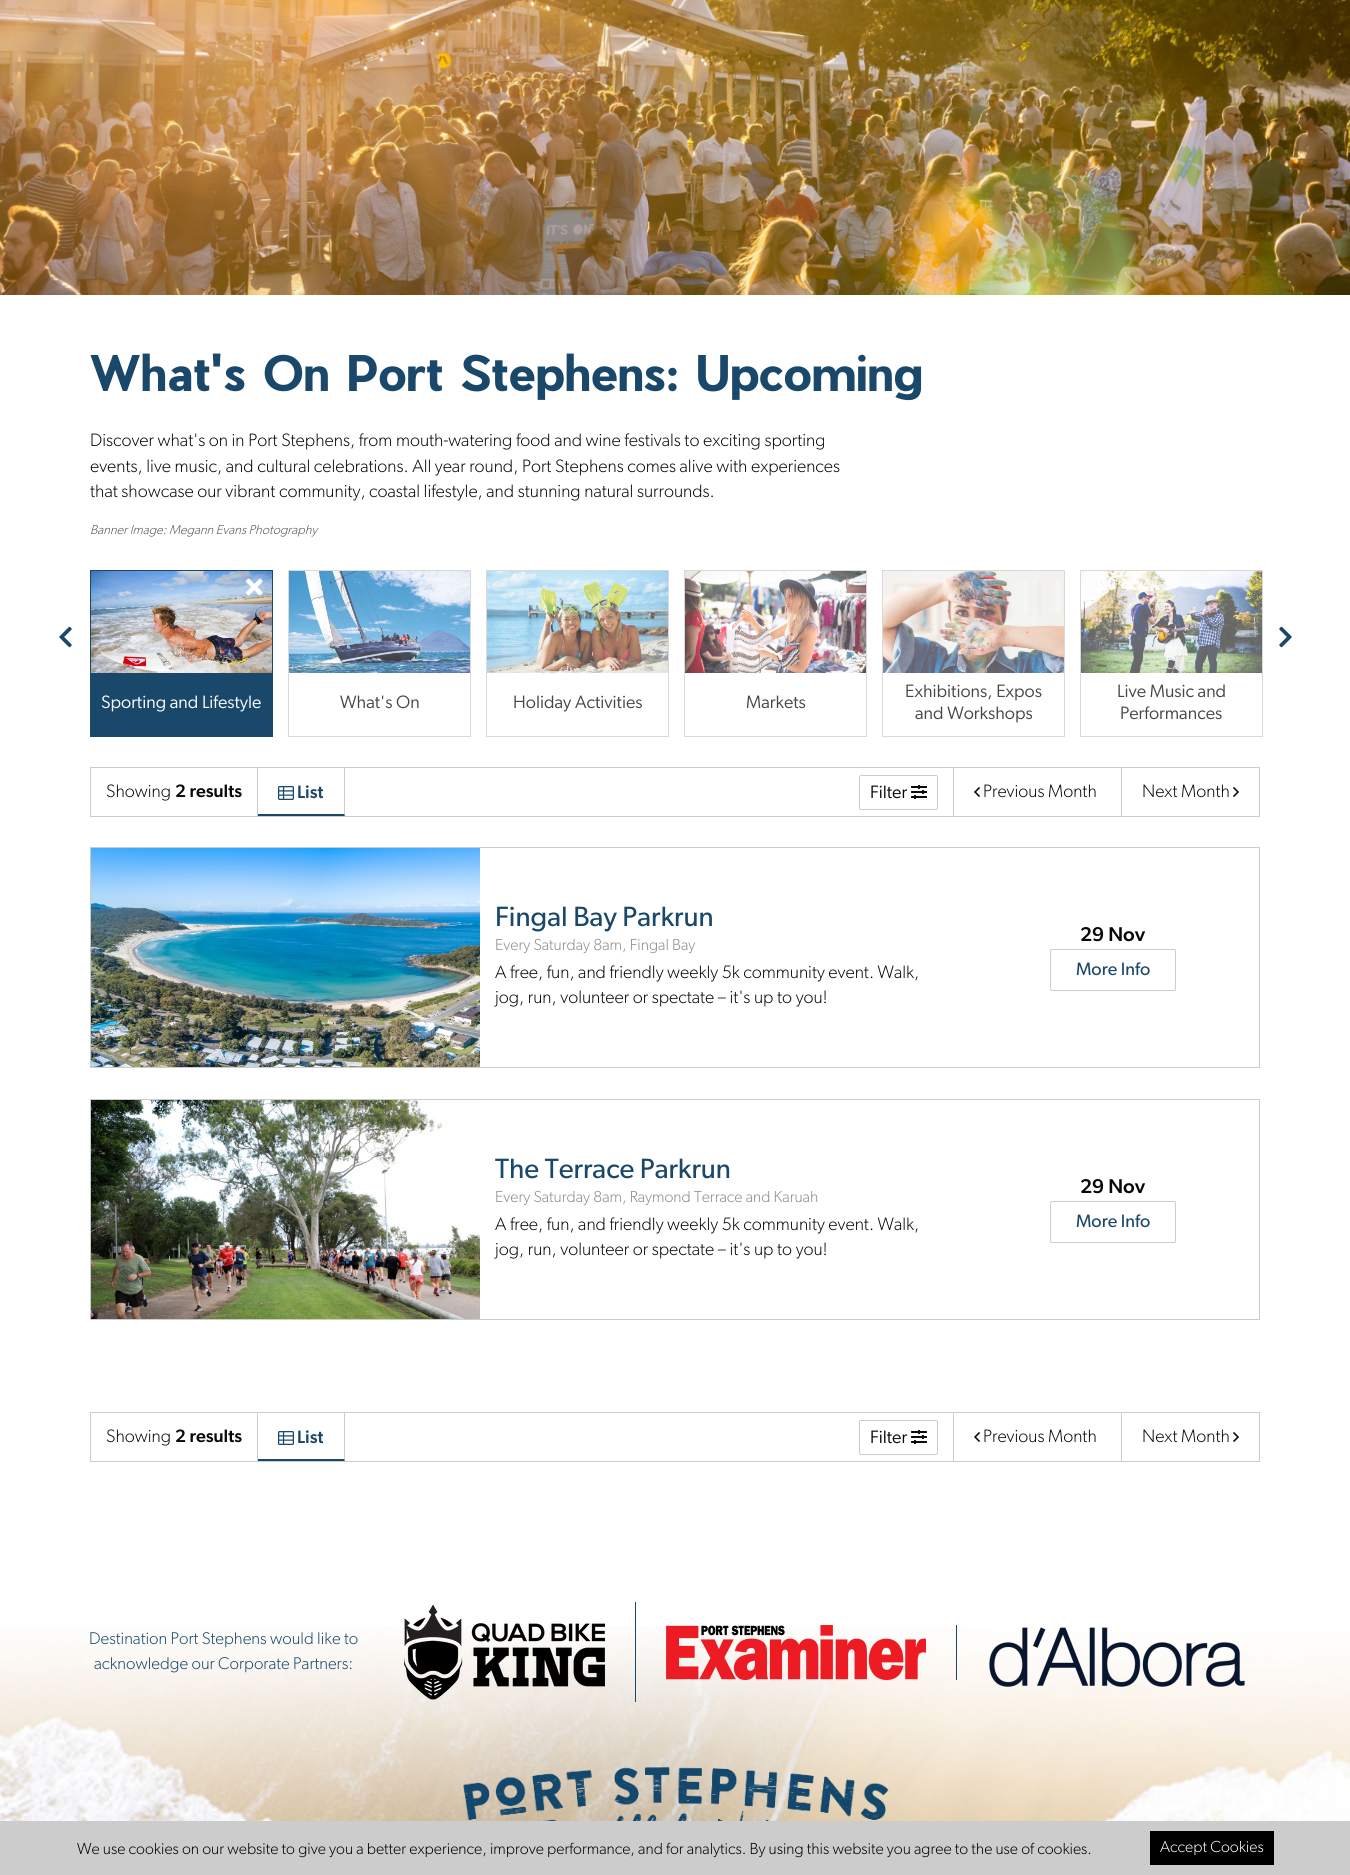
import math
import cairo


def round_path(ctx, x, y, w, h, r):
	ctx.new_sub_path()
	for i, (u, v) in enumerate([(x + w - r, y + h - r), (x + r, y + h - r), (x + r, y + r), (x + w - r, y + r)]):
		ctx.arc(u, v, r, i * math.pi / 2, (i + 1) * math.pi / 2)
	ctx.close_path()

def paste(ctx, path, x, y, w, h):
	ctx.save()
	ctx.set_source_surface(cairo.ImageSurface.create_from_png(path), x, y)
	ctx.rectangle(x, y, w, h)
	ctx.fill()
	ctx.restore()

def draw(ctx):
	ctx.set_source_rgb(1, 1, 1)
	ctx.paint()
	paste(ctx, 'media/1.png', 0, 0, 1350, 295)
	ctx.select_font_face('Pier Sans', cairo.FONT_SLANT_NORMAL, cairo.FONT_WEIGHT_BOLD)
	ctx.set_font_size(48)
	ctx.set_source_rgb(0.098, 0.282, 0.416)
	ctx.move_to(90, 391)
	ctx.show_text('What\'s On Port Stephens: Upcoming')
	ctx.select_font_face('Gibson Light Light')
	ctx.set_font_size(18)
	ctx.set_source_rgb(0.039, 0.039, 0.039)
	for x, y, s in [
		(90, 446, 'Discover what\'s on in Port Stephens, from mouth-watering food and wine festivals to exciting sporting'),
		(90, 472, 'events, live music, and cultural celebrations. All year round, Port Stephens comes alive with experiences'),
		(90, 497, 'that showcase our vibrant community, coastal lifestyle, and stunning natural surrounds.'),
	]:
		ctx.move_to(x, y)
		ctx.show_text(s)
	ctx.select_font_face('Gibson Light Light', cairo.FONT_SLANT_ITALIC)
	ctx.set_font_size(13)
	ctx.set_source_rgb(0.333, 0.333, 0.333)
	ctx.move_to(90, 534)
	ctx.show_text('Banner Image: Megann Evans Photography')
	paste(ctx, 'media/2.png', 59, 626, 13, 22)
	paste(ctx, 'media/3.png', 1279, 626, 13, 22)
	ctx.set_source_rgb(0.098, 0.282, 0.416)
	ctx.rectangle(90, 570, 183, 167)
	ctx.fill()
	paste(ctx, 'media/4.png', 91, 571, 181, 102)
	paste(ctx, 'media/5.png', 246, 578, 17, 18)
	ctx.select_font_face('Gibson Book')
	ctx.set_font_size(18)
	ctx.set_source_rgb(0.996, 0.996, 0.996)
	ctx.move_to(101, 708)
	ctx.show_text('Sporting and Lifestyle')
	ctx.rectangle(288.5, 570.5, 182, 166)
	ctx.set_source_rgb(0.851, 0.851, 0.851)
	ctx.set_line_width(1)
	ctx.stroke()
	paste(ctx, 'media/6.png', 289, 571, 181, 102)
	ctx.set_source_rgb(0.278, 0.278, 0.278)
	ctx.move_to(340, 708)
	ctx.show_text('What\'s On')
	ctx.rectangle(486.5, 570.5, 182, 166)
	ctx.set_source_rgb(0.851, 0.851, 0.851)
	ctx.stroke()
	paste(ctx, 'media/7.png', 487, 571, 181, 102)
	ctx.set_source_rgb(0.278, 0.278, 0.278)
	ctx.move_to(513, 708)
	ctx.show_text('Holiday Activities')
	ctx.rectangle(684.5, 570.5, 182, 166)
	ctx.set_source_rgb(0.851, 0.851, 0.851)
	ctx.stroke()
	paste(ctx, 'media/8.png', 685, 571, 181, 102)
	ctx.set_source_rgb(0.278, 0.278, 0.278)
	ctx.move_to(746, 708)
	ctx.show_text('Markets')
	ctx.rectangle(882.5, 570.5, 182, 166)
	ctx.set_source_rgb(0.851, 0.851, 0.851)
	ctx.stroke()
	paste(ctx, 'media/9.png', 883, 571, 181, 102)
	ctx.set_source_rgb(0.278, 0.278, 0.278)
	ctx.move_to(905, 697)
	ctx.show_text('Exhibitions, Expos')
	ctx.move_to(915, 719)
	ctx.show_text('and Workshops')
	ctx.rectangle(1080.5, 570.5, 182, 166)
	ctx.set_source_rgb(0.851, 0.851, 0.851)
	ctx.stroke()
	paste(ctx, 'media/10.png', 1081, 571, 181, 102)
	ctx.set_source_rgb(0.278, 0.278, 0.278)
	ctx.move_to(1117, 697)
	ctx.show_text('Live Music and')
	ctx.move_to(1120, 719)
	ctx.show_text('Performances')
	ctx.rectangle(90.5, 767.5, 1169, 49)
	ctx.set_source_rgb(0.8, 0.8, 0.8)
	ctx.stroke()
	ctx.rectangle(257, 768, 1, 48)
	ctx.fill()
	ctx.select_font_face('Gibson Light Light')
	ctx.set_source_rgb(0.039, 0.039, 0.039)
	ctx.move_to(106, 797)
	ctx.show_text('Showing')
	ctx.select_font_face('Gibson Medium')
	ctx.move_to(175, 797)
	ctx.show_text('2 results')
	ctx.set_source_rgb(0.8, 0.8, 0.8)
	ctx.new_path()
	ctx.move_to(345, 768)
	ctx.line_to(345, 816)
	ctx.line_to(344, 814)
	ctx.line_to(344, 768)
	ctx.close_path()
	ctx.fill()
	ctx.set_source_rgb(0.098, 0.282, 0.416)
	ctx.new_path()
	ctx.move_to(345, 816)
	ctx.line_to(258, 816)
	ctx.line_to(258, 814)
	ctx.line_to(344, 814)
	ctx.close_path()
	ctx.fill()
	paste(ctx, 'media/11.png', 278, 786, 16, 14)
	ctx.move_to(297, 798)
	ctx.show_text('List')
	round_path(ctx, 859.5, 775.5, 78, 34, 1.5)
	ctx.set_source_rgb(0.8, 0.8, 0.8)
	ctx.stroke()
	ctx.select_font_face('Gibson Book')
	ctx.set_source_rgb(0.039, 0.039, 0.039)
	ctx.move_to(870, 798)
	ctx.show_text('Filter')
	paste(ctx, 'media/12.png', 911, 785, 16, 14)
	ctx.set_source_rgb(0.8, 0.8, 0.8)
	ctx.rectangle(953, 768, 1, 48)
	ctx.fill()
	paste(ctx, 'media/13.png', 974, 787, 6, 10)
	ctx.select_font_face('Gibson Light Light')
	ctx.set_source_rgb(0.039, 0.039, 0.039)
	ctx.move_to(983, 797)
	ctx.show_text('Previous Month')
	ctx.set_source_rgb(0.8, 0.8, 0.8)
	ctx.rectangle(1121, 768, 1, 48)
	ctx.fill()
	ctx.set_source_rgb(0.039, 0.039, 0.039)
	ctx.move_to(1142, 797)
	ctx.show_text('Next Month')
	paste(ctx, 'media/14.png', 1233, 787, 6, 10)
	ctx.rectangle(90.5, 847.5, 1169, 220)
	ctx.set_source_rgb(0.8, 0.8, 0.8)
	ctx.stroke()
	paste(ctx, 'media/15.png', 91, 848, 389, 219)
	ctx.select_font_face('Gibson')
	ctx.set_font_size(28)
	ctx.set_source_rgb(0.098, 0.282, 0.416)
	ctx.move_to(495, 926)
	ctx.show_text('Fingal Bay Parkrun')
	ctx.select_font_face('Gibson Light Light')
	ctx.set_font_size(16)
	ctx.set_source_rgb(0.541, 0.541, 0.541)
	ctx.move_to(495, 950)
	ctx.show_text('Every Saturday 8am, Fingal Bay')
	ctx.set_font_size(18)
	ctx.set_source_rgb(0.039, 0.039, 0.039)
	ctx.move_to(495, 978)
	ctx.show_text('A free, fun, and friendly weekly 5k community event. Walk,')
	ctx.move_to(495, 1003)
	ctx.show_text('jog, run, volunteer or spectate – it\'s up to you!')
	ctx.select_font_face('Gibson Medium')
	ctx.set_font_size(20)
	ctx.move_to(1080, 941)
	ctx.show_text('29 Nov')
	round_path(ctx, 1050.5, 949.5, 125, 41, 1.5)
	ctx.set_source_rgb(0.8, 0.8, 0.8)
	ctx.stroke()
	ctx.select_font_face('Gibson')
	ctx.set_font_size(18)
	ctx.set_source_rgb(0.098, 0.282, 0.416)
	ctx.move_to(1076, 975)
	ctx.show_text('More Info')
	ctx.rectangle(90.5, 1099.5, 1169, 220)
	ctx.set_source_rgb(0.8, 0.8, 0.8)
	ctx.stroke()
	paste(ctx, 'media/16.png', 91, 1100, 389, 219)
	ctx.set_font_size(28)
	ctx.set_source_rgb(0.098, 0.282, 0.416)
	ctx.move_to(495, 1178)
	ctx.show_text('The Terrace Parkrun')
	ctx.select_font_face('Gibson Light Light')
	ctx.set_font_size(16)
	ctx.set_source_rgb(0.541, 0.541, 0.541)
	ctx.move_to(495, 1202)
	ctx.show_text('Every Saturday 8am, Raymond Terrace and Karuah')
	ctx.set_font_size(18)
	ctx.set_source_rgb(0.039, 0.039, 0.039)
	ctx.move_to(495, 1230)
	ctx.show_text('A free, fun, and friendly weekly 5k community event. Walk,')
	ctx.move_to(495, 1255)
	ctx.show_text('jog, run, volunteer or spectate – it\'s up to you!')
	ctx.select_font_face('Gibson Medium')
	ctx.set_font_size(20)
	ctx.move_to(1080, 1193)
	ctx.show_text('29 Nov')
	round_path(ctx, 1050.5, 1201.5, 125, 41, 1.5)
	ctx.set_source_rgb(0.8, 0.8, 0.8)
	ctx.stroke()
	ctx.select_font_face('Gibson')
	ctx.set_font_size(18)
	ctx.set_source_rgb(0.098, 0.282, 0.416)
	ctx.move_to(1076, 1227)
	ctx.show_text('More Info')
	ctx.rectangle(90.5, 1412.5, 1169, 49)
	ctx.set_source_rgb(0.8, 0.8, 0.8)
	ctx.stroke()
	ctx.rectangle(257, 1413, 1, 48)
	ctx.fill()
	ctx.select_font_face('Gibson Light Light')
	ctx.set_source_rgb(0.039, 0.039, 0.039)
	ctx.move_to(106, 1442)
	ctx.show_text('Showing')
	ctx.select_font_face('Gibson Medium')
	ctx.move_to(175, 1442)
	ctx.show_text('2 results')
	ctx.set_source_rgb(0.8, 0.8, 0.8)
	ctx.new_path()
	ctx.move_to(345, 1413)
	ctx.line_to(345, 1461)
	ctx.line_to(344, 1459)
	ctx.line_to(344, 1413)
	ctx.close_path()
	ctx.fill()
	ctx.set_source_rgb(0.098, 0.282, 0.416)
	ctx.new_path()
	ctx.move_to(345, 1461)
	ctx.line_to(258, 1461)
	ctx.line_to(258, 1459)
	ctx.line_to(344, 1459)
	ctx.close_path()
	ctx.fill()
	paste(ctx, 'media/11.png', 278, 1431, 16, 14)
	ctx.move_to(297, 1443)
	ctx.show_text('List')
	round_path(ctx, 859.5, 1420.5, 78, 34, 1.5)
	ctx.set_source_rgb(0.8, 0.8, 0.8)
	ctx.stroke()
	ctx.select_font_face('Gibson Book')
	ctx.set_source_rgb(0.039, 0.039, 0.039)
	ctx.move_to(870, 1443)
	ctx.show_text('Filter')
	paste(ctx, 'media/12.png', 911, 1430, 16, 14)
	ctx.set_source_rgb(0.8, 0.8, 0.8)
	ctx.rectangle(953, 1413, 1, 48)
	ctx.fill()
	paste(ctx, 'media/13.png', 974, 1432, 6, 10)
	ctx.select_font_face('Gibson Light Light')
	ctx.set_source_rgb(0.039, 0.039, 0.039)
	ctx.move_to(983, 1442)
	ctx.show_text('Previous Month')
	ctx.set_source_rgb(0.8, 0.8, 0.8)
	ctx.rectangle(1121, 1413, 1, 48)
	ctx.fill()
	ctx.set_source_rgb(0.039, 0.039, 0.039)
	ctx.move_to(1142, 1442)
	ctx.show_text('Next Month')
	paste(ctx, 'media/14.png', 1233, 1432, 6, 10)
	paste(ctx, 'media/17.png', 0, 1626, 1350, 195)
	ctx.set_font_size(17)
	ctx.set_source_rgb(0.098, 0.282, 0.416)
	ctx.move_to(89, 1644)
	ctx.show_text('Destination Port Stephens would like to')
	ctx.move_to(94, 1669)
	ctx.show_text('acknowledge our Corporate Partners:')
	ctx.rectangle(635, 1602, 1, 100)
	ctx.fill()
	paste(ctx, 'media/18.png', 404, 1604, 201, 96)
	ctx.rectangle(956, 1625, 1, 55)
	ctx.fill()
	paste(ctx, 'media/19.png', 666, 1625, 260, 55)
	paste(ctx, 'media/20.png', 989, 1627, 256, 60)
	paste(ctx, 'media/21.png', 463, 1767, 426, 54)
	ctx.set_source_rgb(0.8, 0.8, 0.8)
	ctx.rectangle(0, 1821, 1350, 54)
	ctx.fill()
	ctx.set_font_size(16)
	ctx.set_source_rgb(0, 0, 0)
	ctx.move_to(77, 1854)
	ctx.show_text('We use cookies on our website to give you a better experience, improve performance, and for analytics. By using this website you agree to the use of cookies.')
	ctx.rectangle(1150, 1831, 124, 34)
	ctx.fill()
	ctx.set_source_rgb(0.996, 0.996, 0.996)
	ctx.move_to(1160, 1852)
	ctx.show_text('Accept Cookies')


surface = cairo.ImageSurface(cairo.FORMAT_RGB24, 1350, 1875)
ctx = cairo.Context(surface)
options = cairo.FontOptions()
options.set_hint_metrics(cairo.HINT_METRICS_OFF)
options.set_hint_style(cairo.HINT_STYLE_NONE)
ctx.set_font_options(options)
ctx.set_miter_limit(4)
draw(ctx)
surface.write_to_png('image.png')
